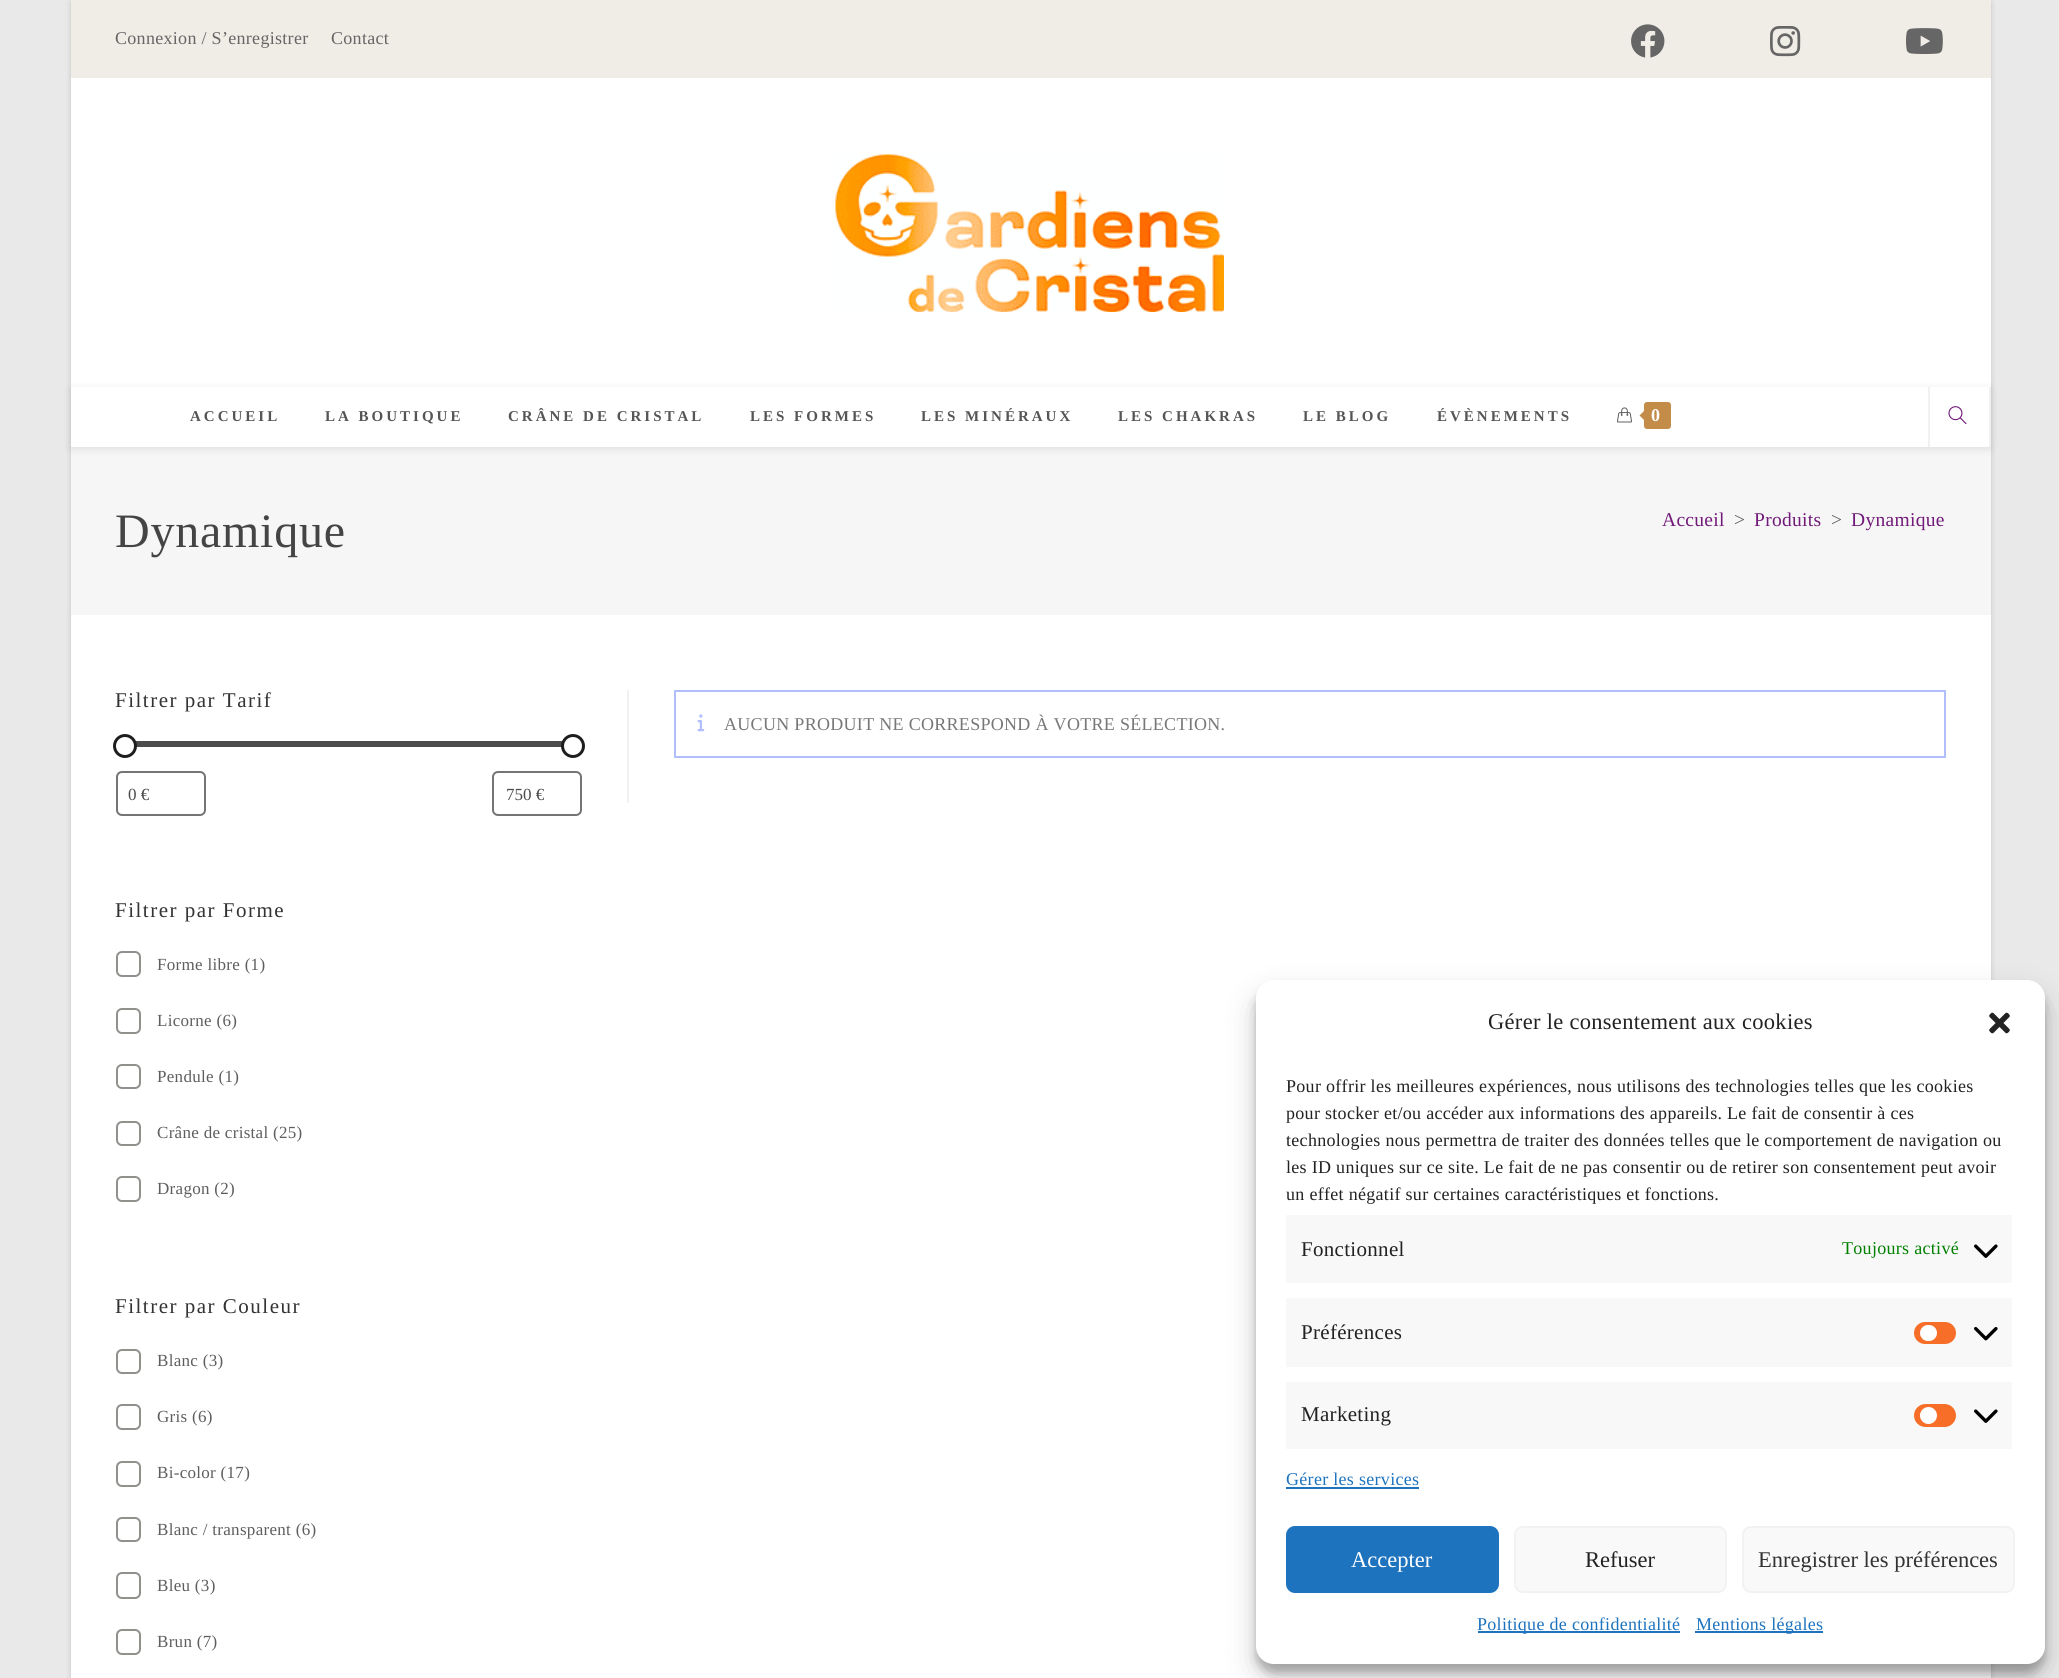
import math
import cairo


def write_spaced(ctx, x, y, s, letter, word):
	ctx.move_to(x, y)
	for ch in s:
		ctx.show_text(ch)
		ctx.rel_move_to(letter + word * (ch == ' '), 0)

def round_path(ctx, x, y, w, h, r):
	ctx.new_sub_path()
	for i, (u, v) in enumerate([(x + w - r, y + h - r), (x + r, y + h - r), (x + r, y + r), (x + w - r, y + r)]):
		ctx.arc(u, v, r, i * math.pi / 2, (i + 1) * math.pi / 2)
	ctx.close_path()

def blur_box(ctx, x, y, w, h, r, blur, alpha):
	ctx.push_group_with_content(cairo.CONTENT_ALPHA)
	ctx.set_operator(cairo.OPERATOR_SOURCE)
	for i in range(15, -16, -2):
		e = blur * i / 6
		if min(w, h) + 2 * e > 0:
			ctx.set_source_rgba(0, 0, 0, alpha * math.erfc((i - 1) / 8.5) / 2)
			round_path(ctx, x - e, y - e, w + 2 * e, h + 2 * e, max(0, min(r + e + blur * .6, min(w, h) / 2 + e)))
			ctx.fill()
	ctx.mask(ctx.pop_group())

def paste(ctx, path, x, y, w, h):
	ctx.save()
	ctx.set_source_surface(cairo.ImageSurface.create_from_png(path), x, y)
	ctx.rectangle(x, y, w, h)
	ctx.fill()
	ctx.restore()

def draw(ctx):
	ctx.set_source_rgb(0.914, 0.914, 0.914)
	ctx.paint()
	ctx.set_source_rgb(0, 0, 0)
	blur_box(ctx, 71, 2, 1920, 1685, 0, 3, 0.15)
	ctx.set_source_rgb(1, 1, 1)
	ctx.rectangle(71, 78, 1920, 1600)
	ctx.fill()
	ctx.set_source_rgb(0.941, 0.922, 0.902)
	ctx.rectangle(71, 0, 1920, 78)
	ctx.fill()
	ctx.select_font_face('Liberation Serif')
	ctx.set_font_size(18)
	ctx.set_source_rgb(0.4, 0.4, 0.4)
	write_spaced(ctx, 115, 44, 'Connexion / S’enregistrer', 0.3, 0)
	write_spaced(ctx, 331, 44, 'Contact', 0.3, 0)
	paste(ctx, 'media/1.png', 1631, 24, 34, 34)
	paste(ctx, 'media/2.png', 1770, 26, 31, 31)
	paste(ctx, 'media/3.png', 1906, 28, 37, 26)
	paste(ctx, 'media/4.png', 835, 154, 389, 158)
	ctx.set_source_rgb(0.961, 0.961, 0.961)
	ctx.rectangle(71, 447, 1920, 168)
	ctx.fill()
	ctx.set_source_rgb(0, 0, 0)
	blur_box(ctx, 71, 389, 1920, 60, 0, 4, 0.1)
	ctx.set_source_rgb(1, 1, 1)
	ctx.rectangle(71, 387, 1918, 60)
	ctx.fill()
	ctx.select_font_face('Liberation Serif', cairo.FONT_SLANT_NORMAL, cairo.FONT_WEIGHT_BOLD)
	ctx.set_font_size(15)
	ctx.set_source_rgb(0.333, 0.333, 0.333)
	for x, y, s in [
		(190, 421, 'ACCUEIL'),
		(325, 421, 'LA BOUTIQUE'),
		(508, 421, 'CRÂNE DE CRISTAL'),
		(750, 421, 'LES FORMES'),
		(921, 421, 'LES MINÉRAUX'),
		(1118, 421, 'LES CHAKRAS'),
		(1303, 421, 'LE BLOG'),
		(1437, 421, 'ÉVÈNEMENTS'),
	]:
		write_spaced(ctx, x, y, s, 3, 0)
	paste(ctx, 'media/5.png', 1617, 407, 15, 16)
	ctx.set_source_rgb(0.769, 0.549, 0.286)
	round_path(ctx, 1644, 402, 27, 27, 3)
	ctx.fill()
	ctx.new_path()
	ctx.move_to(1647, 408)
	ctx.line_to(1647, 423)
	ctx.line_to(1639.5, 415.5)
	ctx.close_path()
	ctx.fill()
	ctx.set_font_size(18)
	ctx.set_source_rgb(1, 1, 1)
	write_spaced(ctx, 1651, 421, '0', 3, 0)
	ctx.set_source_rgb(0.945, 0.945, 0.945)
	ctx.rectangle(1989, 387, 2, 60)
	ctx.fill()
	ctx.rectangle(1928, 387, 2, 60)
	ctx.fill()
	paste(ctx, 'media/6.png', 1948, 406, 19, 19)
	ctx.select_font_face('Liberation Serif')
	ctx.set_font_size(48)
	ctx.set_source_rgb(0.267, 0.267, 0.267)
	write_spaced(ctx, 115, 547, 'Dynamique', 0.75, 0)
	ctx.set_font_size(19.5)
	ctx.set_source_rgb(0.447, 0.102, 0.478)
	write_spaced(ctx, 1662, 526, 'Accueil', 0.3, 0)
	ctx.set_source_rgb(0.369, 0.369, 0.369)
	write_spaced(ctx, 1734, 526, '>', 0.3, 0)
	ctx.set_source_rgb(0.447, 0.102, 0.478)
	write_spaced(ctx, 1754, 526, 'Produits', 0.3, 0)
	ctx.set_source_rgb(0.369, 0.369, 0.369)
	write_spaced(ctx, 1831, 526, '>', 0.3, 0)
	ctx.set_source_rgb(0.447, 0.102, 0.478)
	write_spaced(ctx, 1851, 526, 'Dynamique', 0.3, 0)
	ctx.set_font_size(21)
	ctx.set_source_rgb(0.2, 0.2, 0.2)
	write_spaced(ctx, 115, 707, 'Filtrer par Tarif', 1.5, 0)
	ctx.set_source_rgb(0.298, 0.298, 0.298)
	ctx.rectangle(135, 741, 428, 6)
	ctx.fill()
	ctx.set_source_rgb(1, 1, 1)
	ctx.arc(125, 746, 10.5, 0, 2 * math.pi)
	ctx.fill_preserve()
	ctx.set_source_rgb(0.118, 0.118, 0.118)
	ctx.set_line_width(3)
	ctx.stroke()
	ctx.set_source_rgb(1, 1, 1)
	ctx.arc(573, 746, 10.5, 0, 2 * math.pi)
	ctx.fill_preserve()
	ctx.set_source_rgb(0.118, 0.118, 0.118)
	ctx.stroke()
	round_path(ctx, 117, 772, 88, 43, 5)
	ctx.set_source_rgb(0.459, 0.459, 0.459)
	ctx.set_line_width(2)
	ctx.stroke()
	ctx.set_font_size(17)
	ctx.set_source_rgb(0.298, 0.298, 0.298)
	ctx.move_to(128, 800)
	ctx.show_text('0 €')
	round_path(ctx, 493, 772, 88, 43, 5)
	ctx.set_source_rgb(0.459, 0.459, 0.459)
	ctx.stroke()
	ctx.set_source_rgb(0.298, 0.298, 0.298)
	ctx.move_to(506, 800)
	ctx.show_text('750 €')
	ctx.set_font_size(21)
	ctx.set_source_rgb(0.2, 0.2, 0.2)
	write_spaced(ctx, 115, 917, 'Filtrer par Forme', 1.5, 0)
	round_path(ctx, 117, 952, 23, 24, 5)
	ctx.set_source_rgb(0.569, 0.565, 0.553)
	ctx.stroke()
	ctx.set_font_size(17)
	ctx.set_source_rgb(0.369, 0.369, 0.369)
	write_spaced(ctx, 157, 970, 'Forme libre (1)', 0.3, 0)
	round_path(ctx, 117, 1009, 23, 24, 5)
	ctx.set_source_rgb(0.569, 0.565, 0.553)
	ctx.stroke()
	ctx.set_source_rgb(0.369, 0.369, 0.369)
	write_spaced(ctx, 157, 1026, 'Licorne (6)', 0.3, 0)
	round_path(ctx, 117, 1065, 23, 23, 5)
	ctx.set_source_rgb(0.569, 0.565, 0.553)
	ctx.stroke()
	ctx.set_source_rgb(0.369, 0.369, 0.369)
	write_spaced(ctx, 157, 1082, 'Pendule (1)', 0.3, 0)
	round_path(ctx, 117, 1122, 23, 23, 5)
	ctx.set_source_rgb(0.569, 0.565, 0.553)
	ctx.stroke()
	ctx.set_source_rgb(0.369, 0.369, 0.369)
	write_spaced(ctx, 157, 1138, 'Crâne de cristal (25)', 0.3, 0)
	round_path(ctx, 117, 1177, 23, 24, 5)
	ctx.set_source_rgb(0.569, 0.565, 0.553)
	ctx.stroke()
	ctx.set_source_rgb(0.369, 0.369, 0.369)
	write_spaced(ctx, 157, 1194, 'Dragon (2)', 0.3, 0)
	ctx.set_font_size(21)
	ctx.set_source_rgb(0.2, 0.2, 0.2)
	write_spaced(ctx, 115, 1313, 'Filtrer par Couleur', 1.5, 0)
	round_path(ctx, 117, 1350, 23, 23, 5)
	ctx.set_source_rgb(0.569, 0.565, 0.553)
	ctx.stroke()
	ctx.set_font_size(17)
	ctx.set_source_rgb(0.369, 0.369, 0.369)
	write_spaced(ctx, 157, 1366, 'Blanc (3)', 0.3, 0)
	round_path(ctx, 117, 1405, 23, 24, 5)
	ctx.set_source_rgb(0.569, 0.565, 0.553)
	ctx.stroke()
	ctx.set_source_rgb(0.369, 0.369, 0.369)
	write_spaced(ctx, 157, 1422, 'Gris (6)', 0.3, 0)
	round_path(ctx, 117, 1462, 23, 24, 5)
	ctx.set_source_rgb(0.569, 0.565, 0.553)
	ctx.stroke()
	ctx.set_source_rgb(0.369, 0.369, 0.369)
	write_spaced(ctx, 157, 1478, 'Bi-color (17)', 0.3, 0)
	round_path(ctx, 117, 1518, 23, 23, 5)
	ctx.set_source_rgb(0.569, 0.565, 0.553)
	ctx.stroke()
	ctx.set_source_rgb(0.369, 0.369, 0.369)
	write_spaced(ctx, 157, 1535, 'Blanc / transparent (6)', 0.3, 0)
	round_path(ctx, 117, 1573, 23, 25, 5)
	ctx.set_source_rgb(0.569, 0.565, 0.553)
	ctx.stroke()
	ctx.set_source_rgb(0.369, 0.369, 0.369)
	write_spaced(ctx, 157, 1591, 'Bleu (3)', 0.3, 0)
	round_path(ctx, 117, 1630, 23, 24, 5)
	ctx.set_source_rgb(0.569, 0.565, 0.553)
	ctx.stroke()
	ctx.set_source_rgb(0.369, 0.369, 0.369)
	write_spaced(ctx, 157, 1647, 'Brun (7)', 0.3, 0)
	ctx.set_source_rgb(0.945, 0.945, 0.945)
	ctx.rectangle(627, 690, 2, 113)
	ctx.fill()
	ctx.rectangle(675, 691, 1270, 66)
	ctx.set_source_rgb(0.694, 0.745, 0.992)
	ctx.stroke()
	paste(ctx, 'media/7.png', 697, 714, 8, 18)
	ctx.set_font_size(18)
	ctx.set_source_rgb(0.467, 0.467, 0.467)
	write_spaced(ctx, 724, 730, 'AUCUN PRODUIT NE CORRESPOND À VOTRE SÉLECTION.', 0.3, 0)
	ctx.set_source_rgb(0, 0, 0)
	blur_box(ctx, 1256, 989, 789, 684, 18, 4.5, 0.23)
	blur_box(ctx, 1256, 995, 789, 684, 18, 15, 0.19)
	ctx.set_source_rgb(1, 1, 1)
	round_path(ctx, 1256, 980, 789, 684, 18)
	ctx.fill()
	ctx.set_font_size(22.5)
	ctx.set_source_rgb(0.133, 0.133, 0.133)
	write_spaced(ctx, 1488, 1029, 'Gérer le consentement aux cookies', 0.3, 0)
	paste(ctx, 'media/8.png', 1989, 1012, 21, 22)
	ctx.set_font_size(18)
	for x, y, s in [
		(1286, 1092, 'Pour offrir les meilleures expériences, nous utilisons des technologies telles que les cookies'),
		(1286, 1119, 'pour stocker et/ou accéder aux informations des appareils. Le fait de consentir à ces'),
		(1286, 1146, 'technologies nous permettra de traiter des données telles que le comportement de navigation ou'),
		(1286, 1173, 'les ID uniques sur ce site. Le fait de ne pas consentir ou de retirer son consentement peut avoir'),
		(1286, 1200, 'un effet négatif sur certaines caractéristiques et fonctions.'),
	]:
		write_spaced(ctx, x, y, s, 0.3, 0)
	ctx.set_source_rgb(0.969, 0.969, 0.969)
	ctx.rectangle(1286, 1215, 726, 68)
	ctx.fill()
	ctx.set_font_size(21)
	ctx.set_source_rgb(0.133, 0.133, 0.133)
	write_spaced(ctx, 1301, 1256, 'Fonctionnel', 0.3, 0)
	ctx.set_font_size(18)
	ctx.set_source_rgb(0, 0.502, 0)
	write_spaced(ctx, 1842, 1254, 'Toujours activé', 0.3, 0)
	paste(ctx, 'media/9.png', 1974, 1244, 24, 14)
	ctx.set_source_rgb(0.969, 0.969, 0.969)
	ctx.rectangle(1286, 1298, 726, 69)
	ctx.fill()
	ctx.set_font_size(21)
	ctx.set_source_rgb(0.133, 0.133, 0.133)
	write_spaced(ctx, 1301, 1339, 'Préférences', 0.3, 0)
	ctx.set_source_rgb(0.961, 0.431, 0.157)
	round_path(ctx, 1914, 1322, 42, 22, 11)
	ctx.fill()
	ctx.set_source_rgb(1, 1, 1)
	round_path(ctx, 1920, 1325, 17, 16, 8)
	ctx.fill()
	paste(ctx, 'media/10.png', 1974, 1327, 24, 14)
	ctx.set_source_rgb(0.969, 0.969, 0.969)
	ctx.rectangle(1286, 1382, 726, 67)
	ctx.fill()
	ctx.set_source_rgb(0.133, 0.133, 0.133)
	write_spaced(ctx, 1301, 1421, 'Marketing', 0.3, 0)
	ctx.set_source_rgb(0.961, 0.431, 0.157)
	round_path(ctx, 1914, 1404, 42, 23, 11.5)
	ctx.fill()
	ctx.set_source_rgb(1, 1, 1)
	ctx.arc(1928.5, 1415.5, 8.5, 0, 2 * math.pi)
	ctx.fill()
	paste(ctx, 'media/9.png', 1974, 1409, 24, 14)
	ctx.set_font_size(18)
	ctx.set_source_rgb(0.118, 0.451, 0.745)
	write_spaced(ctx, 1286, 1485, 'Gérer les services', 0.3, 0)
	ctx.rectangle(1286, 1487, 133, 2)
	ctx.fill()
	round_path(ctx, 1287, 1527, 211, 65, 8)
	ctx.fill_preserve()
	ctx.stroke()
	ctx.set_font_size(22.5)
	ctx.set_source_rgb(1, 1, 1)
	ctx.move_to(1351, 1567)
	ctx.show_text('Accepter')
	ctx.set_source_rgb(0.976, 0.976, 0.976)
	round_path(ctx, 1515, 1527, 211, 65, 8)
	ctx.fill_preserve()
	ctx.set_source_rgb(0.949, 0.949, 0.949)
	ctx.stroke()
	ctx.set_source_rgb(0.133, 0.133, 0.133)
	ctx.move_to(1585, 1567)
	ctx.show_text('Refuser')
	ctx.set_source_rgb(0.976, 0.976, 0.976)
	round_path(ctx, 1743, 1527, 271, 65, 8)
	ctx.fill_preserve()
	ctx.set_source_rgb(0.949, 0.949, 0.949)
	ctx.stroke()
	ctx.set_source_rgb(0.2, 0.2, 0.2)
	ctx.move_to(1758, 1567)
	ctx.show_text('Enregistrer les préférences')
	ctx.set_source_rgb(0.118, 0.451, 0.745)
	ctx.rectangle(1478, 1631, 202, 2)
	ctx.fill()
	ctx.set_font_size(18)
	write_spaced(ctx, 1477, 1630, 'Politique de confidentialité', 0.3, 0)
	ctx.rectangle(1695, 1631, 128, 2)
	ctx.fill()
	write_spaced(ctx, 1696, 1630, 'Mentions légales', 0.3, 0)


surface = cairo.ImageSurface(cairo.FORMAT_RGB24, 2059, 1678)
ctx = cairo.Context(surface)
options = cairo.FontOptions()
options.set_hint_metrics(cairo.HINT_METRICS_OFF)
options.set_hint_style(cairo.HINT_STYLE_NONE)
ctx.set_font_options(options)
ctx.set_miter_limit(4)
draw(ctx)
surface.write_to_png('image.png')
